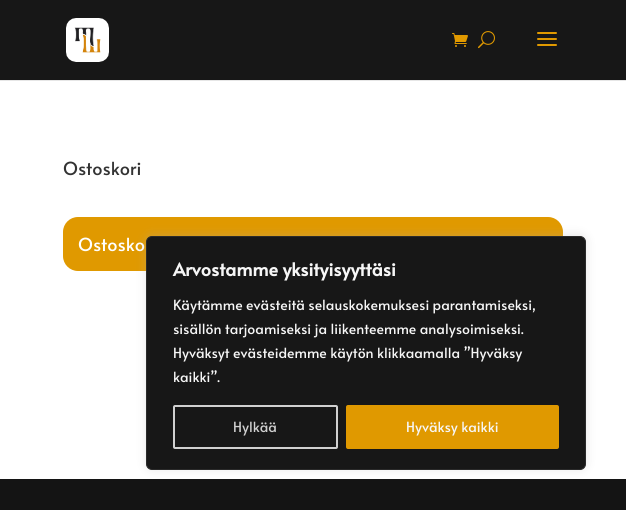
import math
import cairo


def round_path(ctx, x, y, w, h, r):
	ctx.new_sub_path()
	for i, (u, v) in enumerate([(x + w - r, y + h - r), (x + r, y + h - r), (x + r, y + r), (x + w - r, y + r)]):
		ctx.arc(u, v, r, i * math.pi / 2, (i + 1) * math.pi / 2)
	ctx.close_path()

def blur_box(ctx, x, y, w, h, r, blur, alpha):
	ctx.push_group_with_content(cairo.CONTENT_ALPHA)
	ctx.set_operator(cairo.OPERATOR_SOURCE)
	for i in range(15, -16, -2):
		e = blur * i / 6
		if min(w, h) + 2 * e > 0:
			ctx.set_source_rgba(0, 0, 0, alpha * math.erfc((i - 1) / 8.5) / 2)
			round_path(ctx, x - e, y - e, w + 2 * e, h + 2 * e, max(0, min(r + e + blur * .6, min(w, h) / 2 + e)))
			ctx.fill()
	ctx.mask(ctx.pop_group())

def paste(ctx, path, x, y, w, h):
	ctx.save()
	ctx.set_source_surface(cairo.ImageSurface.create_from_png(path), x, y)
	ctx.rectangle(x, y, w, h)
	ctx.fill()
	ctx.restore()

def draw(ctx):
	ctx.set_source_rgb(1, 1, 1)
	ctx.paint()
	ctx.set_source_rgb(0.902, 0.902, 0.902)
	ctx.rectangle(0, 80, 626, 1)
	ctx.fill()
	ctx.set_source_rgb(0.09, 0.09, 0.09)
	ctx.rectangle(0, 0, 626, 80)
	ctx.fill()
	paste(ctx, 'media/1.png', 66, 18, 43, 44)
	paste(ctx, 'media/2.png', 452, 33, 16, 14)
	paste(ctx, 'media/3.png', 478, 31, 17, 18)
	paste(ctx, 'media/4.png', 537, 32, 20, 14)
	ctx.select_font_face('Alata')
	ctx.set_font_size(18)
	ctx.set_source_rgb(0.2, 0.2, 0.2)
	ctx.move_to(63, 175)
	ctx.show_text('Ostoskori')
	ctx.set_source_rgb(0.878, 0.6, 0)
	round_path(ctx, 63, 217, 500, 54, 15)
	ctx.fill()
	ctx.set_source_rgb(1, 1, 1)
	ctx.move_to(78, 251)
	ctx.show_text('Ostosko')
	ctx.set_source_rgb(0.082, 0.082, 0.082)
	ctx.rectangle(0, 479, 626, 31)
	ctx.fill()
	ctx.set_source_rgb(0.675, 0.671, 0.671)
	blur_box(ctx, 146, 235, 440, 234, 6, 5, 0.3)
	ctx.set_source_rgb(0.09, 0.09, 0.09)
	round_path(ctx, 146.5, 236.5, 439, 233, 5.5)
	ctx.fill_preserve()
	ctx.set_source_rgb(0.165, 0.165, 0.165)
	ctx.set_line_width(1)
	ctx.stroke()
	ctx.select_font_face('Alata', cairo.FONT_SLANT_NORMAL, cairo.FONT_WEIGHT_BOLD)
	ctx.set_source_rgb(0.961, 0.961, 0.961)
	ctx.move_to(173, 276)
	ctx.show_text('Arvostamme yksityisyyttäsi')
	ctx.select_font_face('Alata')
	ctx.set_font_size(14)
	for x, y, s in [
		(173, 310, 'Käytämme evästeitä selauskokemuksesi parantamiseksi,'),
		(173, 334, 'sisällön tarjoamiseksi ja liikenteemme analysoimiseksi.'),
		(173, 358, 'Hyväksyt evästeidemme käytön klikkaamalla ”Hyväksy'),
		(173, 382, 'kaikki”.'),
	]:
		ctx.move_to(x, y)
		ctx.show_text(s)
	round_path(ctx, 174, 406, 163, 42, 1)
	ctx.set_source_rgb(0.816, 0.816, 0.816)
	ctx.set_line_width(2)
	ctx.stroke()
	ctx.move_to(233, 432)
	ctx.show_text('Hylkää')
	ctx.set_source_rgb(0.878, 0.6, 0)
	round_path(ctx, 347, 406, 211, 42, 1)
	ctx.fill_preserve()
	ctx.stroke()
	ctx.set_source_rgb(0.961, 0.961, 0.961)
	ctx.move_to(406, 432)
	ctx.show_text('Hyväksy kaikki')


surface = cairo.ImageSurface(cairo.FORMAT_RGB24, 626, 510)
ctx = cairo.Context(surface)
options = cairo.FontOptions()
options.set_hint_metrics(cairo.HINT_METRICS_OFF)
options.set_hint_style(cairo.HINT_STYLE_NONE)
ctx.set_font_options(options)
ctx.set_miter_limit(4)
draw(ctx)
surface.write_to_png('image.png')
